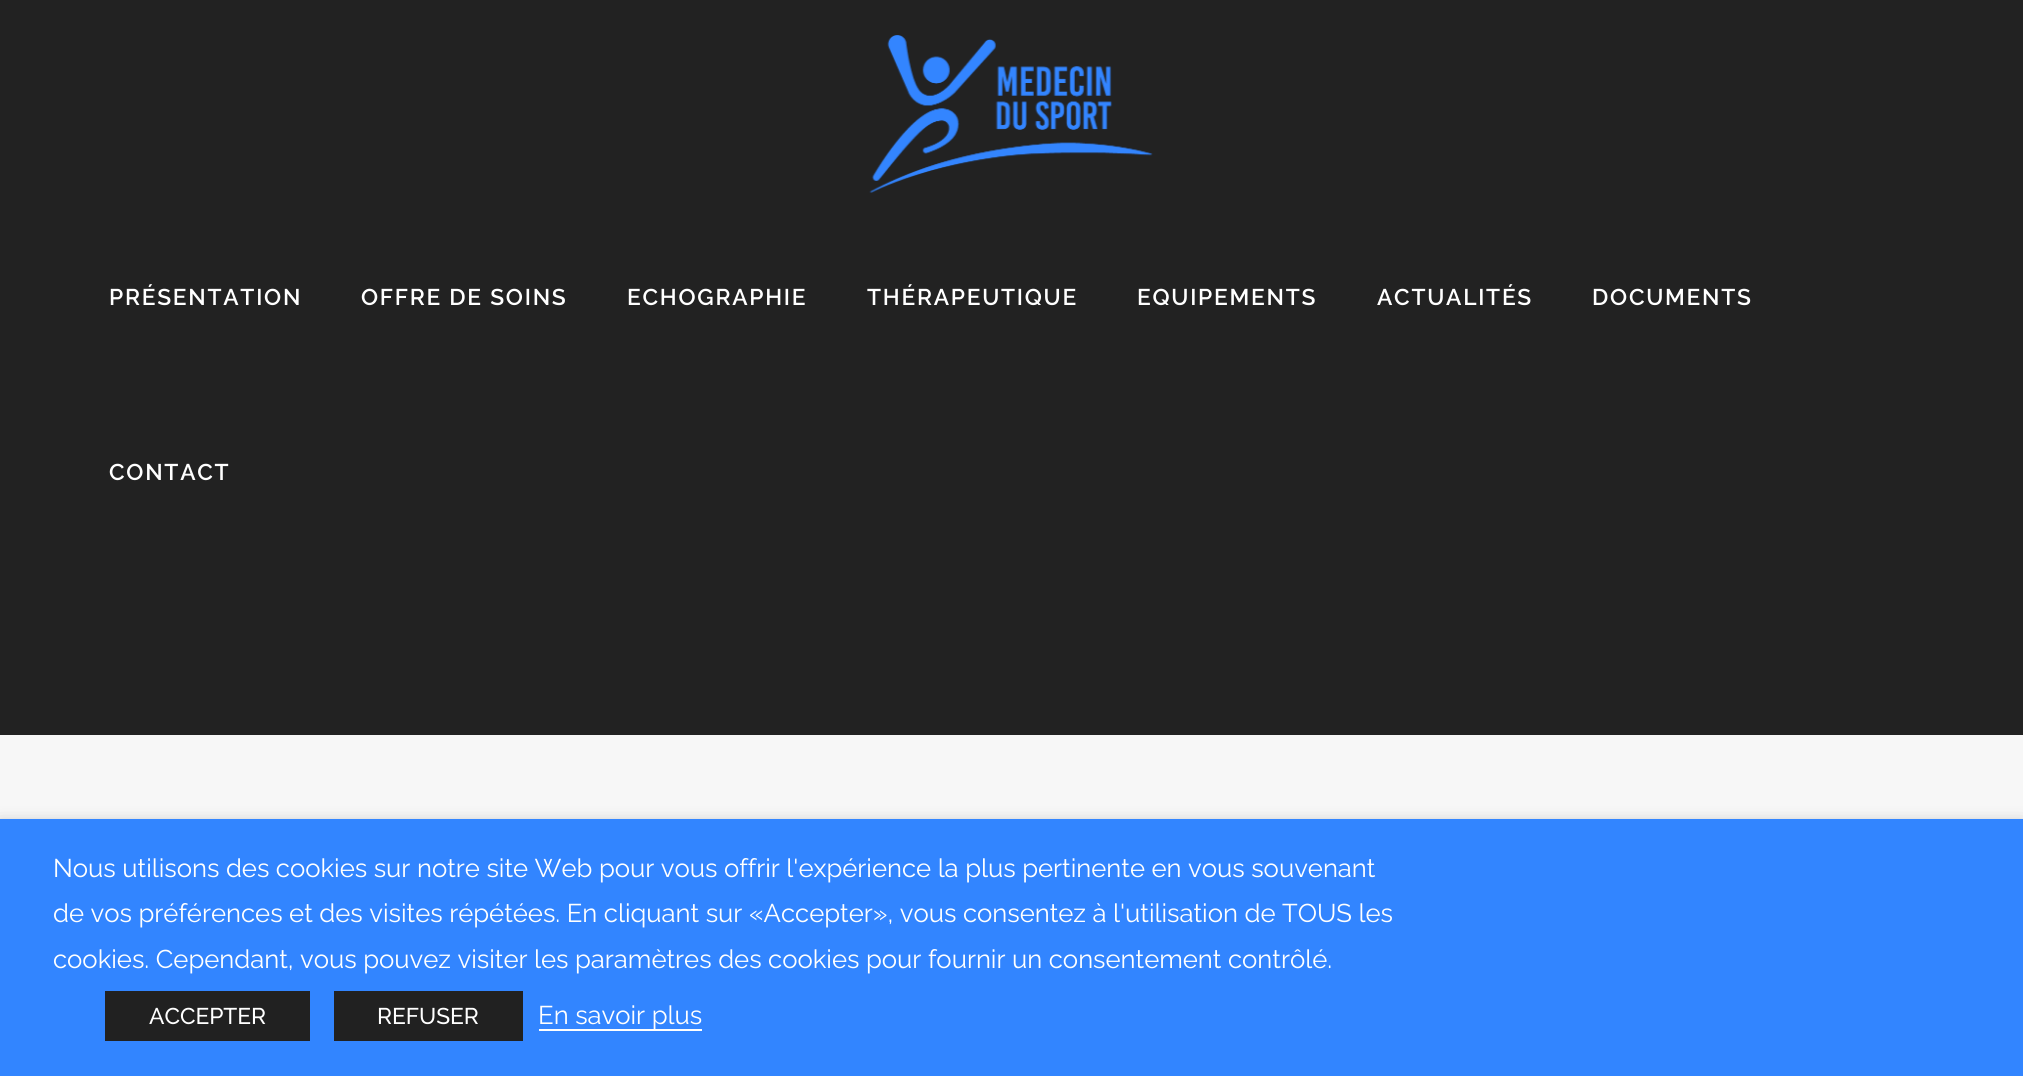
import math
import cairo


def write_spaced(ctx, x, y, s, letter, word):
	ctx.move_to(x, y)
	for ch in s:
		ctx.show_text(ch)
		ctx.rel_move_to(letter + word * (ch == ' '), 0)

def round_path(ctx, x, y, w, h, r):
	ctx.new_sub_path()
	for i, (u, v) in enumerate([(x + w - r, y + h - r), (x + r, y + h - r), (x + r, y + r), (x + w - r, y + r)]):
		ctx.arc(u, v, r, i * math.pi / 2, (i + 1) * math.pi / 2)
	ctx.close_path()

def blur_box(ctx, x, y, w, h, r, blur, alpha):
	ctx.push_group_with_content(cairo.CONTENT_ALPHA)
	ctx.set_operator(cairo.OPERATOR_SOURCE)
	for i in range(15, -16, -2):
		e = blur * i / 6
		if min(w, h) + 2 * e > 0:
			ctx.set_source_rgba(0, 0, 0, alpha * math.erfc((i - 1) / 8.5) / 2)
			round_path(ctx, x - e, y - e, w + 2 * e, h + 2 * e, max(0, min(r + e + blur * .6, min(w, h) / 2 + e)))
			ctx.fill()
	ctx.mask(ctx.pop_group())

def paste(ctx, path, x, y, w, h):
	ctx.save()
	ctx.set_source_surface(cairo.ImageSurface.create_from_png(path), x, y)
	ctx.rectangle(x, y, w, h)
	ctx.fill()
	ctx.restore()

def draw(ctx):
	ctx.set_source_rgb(0.965, 0.965, 0.965)
	ctx.paint()
	ctx.set_source_rgb(0.133, 0.133, 0.133)
	ctx.rectangle(0, 0, 2023, 735)
	ctx.fill()
	paste(ctx, 'media/1.png', 869, 35, 284, 158)
	ctx.select_font_face('Raleway SemiBold')
	ctx.set_font_size(22.75)
	ctx.set_source_rgb(1, 1, 1)
	for x, y, s in [
		(109, 305, 'PRÉSENTATION'),
		(361, 305, 'OFFRE DE SOINS'),
		(627, 305, 'ECHOGRAPHIE'),
		(867, 305, 'THÉRAPEUTIQUE'),
		(1137, 305, 'EQUIPEMENTS'),
		(1377, 305, 'ACTUALITÉS'),
		(1592, 305, 'DOCUMENTS'),
		(109, 480, 'CONTACT'),
	]:
		write_spaced(ctx, x, y, s, 1.75, 0)
	ctx.set_source_rgb(0, 0, 0)
	blur_box(ctx, 0, 828, 2023, 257, 0, 9, 0.5)
	ctx.set_source_rgb(0.196, 0.522, 1)
	ctx.rectangle(0, 819, 2023, 257)
	ctx.fill()
	ctx.select_font_face('Raleway')
	ctx.set_font_size(25.67)
	ctx.set_source_rgb(1, 1, 1)
	for x, y, s in [
		(53, 877, 'Nous utilisons des cookies sur notre site Web pour vous offrir l\'expérience la plus pertinente en vous souvenant'),
		(53, 922, 'de vos préférences et des visites répétées. En cliquant sur «Accepter», vous consentez à l\'utilisation de TOUS les'),
		(53, 968, 'cookies. Cependant, vous pouvez visiter les paramètres des cookies pour fournir un consentement contrôlé.'),
	]:
		ctx.move_to(x, y)
		ctx.show_text(s)
	ctx.set_source_rgb(0.129, 0.129, 0.129)
	ctx.rectangle(105, 991, 205, 50)
	ctx.fill()
	ctx.select_font_face('Raleway Medium')
	ctx.set_font_size(22.75)
	ctx.set_source_rgb(1, 1, 1)
	ctx.move_to(149, 1024)
	ctx.show_text('ACCEPTER')
	ctx.set_source_rgb(0.129, 0.129, 0.129)
	ctx.rectangle(334, 991, 189, 50)
	ctx.fill()
	ctx.set_source_rgb(1, 1, 1)
	ctx.move_to(377, 1024)
	ctx.show_text('REFUSER')
	ctx.rectangle(539, 1029, 163, 2)
	ctx.fill()
	ctx.select_font_face('Raleway')
	ctx.set_font_size(25.67)
	ctx.move_to(538, 1024)
	ctx.show_text('En savoir plus')


surface = cairo.ImageSurface(cairo.FORMAT_RGB24, 2023, 1076)
ctx = cairo.Context(surface)
options = cairo.FontOptions()
options.set_hint_metrics(cairo.HINT_METRICS_OFF)
options.set_hint_style(cairo.HINT_STYLE_NONE)
ctx.set_font_options(options)
ctx.set_miter_limit(4)
draw(ctx)
surface.write_to_png('image.png')
